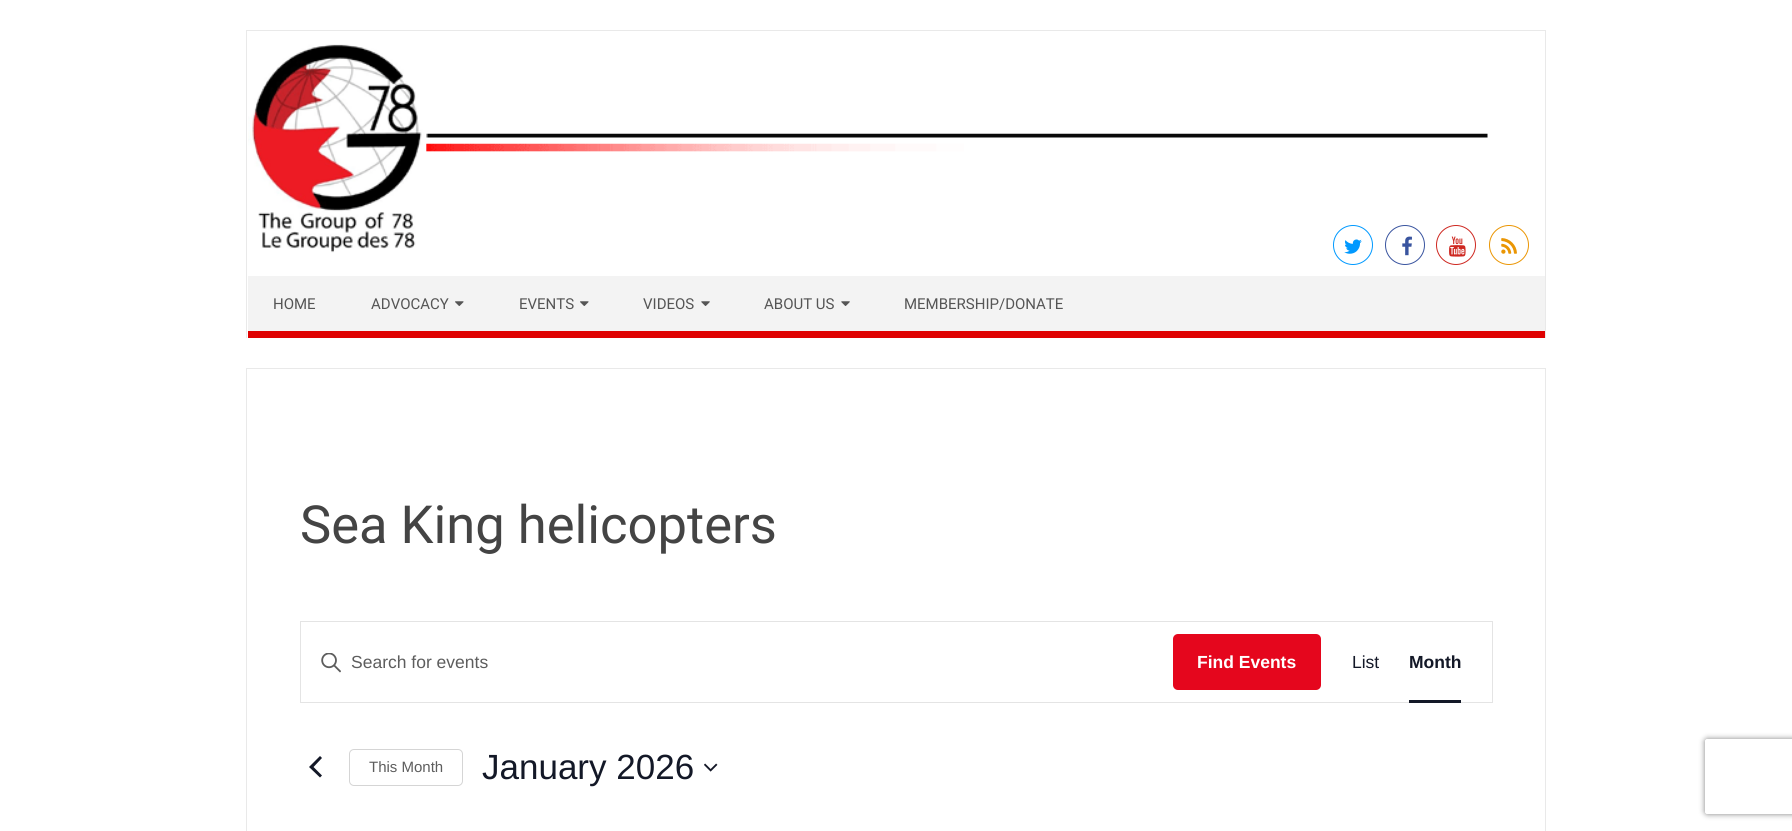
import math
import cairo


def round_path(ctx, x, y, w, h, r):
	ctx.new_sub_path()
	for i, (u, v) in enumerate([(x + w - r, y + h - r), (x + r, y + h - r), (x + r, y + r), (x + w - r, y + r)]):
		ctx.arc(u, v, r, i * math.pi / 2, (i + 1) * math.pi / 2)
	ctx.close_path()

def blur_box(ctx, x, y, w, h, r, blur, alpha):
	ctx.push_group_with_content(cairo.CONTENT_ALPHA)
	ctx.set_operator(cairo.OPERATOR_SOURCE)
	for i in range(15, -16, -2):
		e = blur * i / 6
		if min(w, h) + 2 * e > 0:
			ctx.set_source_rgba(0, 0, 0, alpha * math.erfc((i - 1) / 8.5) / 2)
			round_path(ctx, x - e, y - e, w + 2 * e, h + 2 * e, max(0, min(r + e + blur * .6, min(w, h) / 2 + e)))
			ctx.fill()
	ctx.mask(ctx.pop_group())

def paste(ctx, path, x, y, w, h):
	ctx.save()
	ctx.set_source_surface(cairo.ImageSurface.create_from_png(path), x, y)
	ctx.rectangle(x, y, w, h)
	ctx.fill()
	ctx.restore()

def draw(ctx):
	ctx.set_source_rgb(1, 1, 1)
	ctx.paint()
	ctx.set_source_rgb(0.914, 0.914, 0.914)
	ctx.rectangle(246, 30, 1300, 1)
	ctx.rectangle(1545, 30, 1, 308)
	ctx.rectangle(246, 30, 1, 308)
	ctx.fill()
	paste(ctx, 'media/1.png', 248, 44, 1240, 209)
	ctx.arc(1353, 245, 19.5, 0, 2 * math.pi)
	ctx.set_source_rgb(0, 0.6, 1)
	ctx.set_line_width(1)
	ctx.stroke()
	paste(ctx, 'media/2.png', 1344, 239, 18, 15)
	ctx.arc(1405, 245, 19.5, 0, 2 * math.pi)
	ctx.set_source_rgb(0.224, 0.329, 0.624)
	ctx.stroke()
	paste(ctx, 'media/3.png', 1402, 236, 10, 20)
	ctx.arc(1456, 245, 19.5, 0, 2 * math.pi)
	ctx.set_source_rgb(0.808, 0.157, 0.129)
	ctx.stroke()
	paste(ctx, 'media/4.png', 1449, 236, 17, 21)
	ctx.arc(1509, 245, 19.5, 0, 2 * math.pi)
	ctx.set_source_rgb(0.918, 0.588, 0.016)
	ctx.stroke()
	paste(ctx, 'media/5.png', 1501, 238, 16, 16)
	ctx.set_source_rgb(0.953, 0.953, 0.953)
	ctx.rectangle(248, 276, 1297, 55)
	ctx.fill()
	ctx.set_source_rgb(0.875, 0.004, 0.004)
	ctx.rectangle(248, 331, 1297, 7)
	ctx.fill()
	ctx.select_font_face('Roboto')
	ctx.set_font_size(15)
	ctx.set_source_rgb(0.333, 0.333, 0.333)
	ctx.move_to(273, 309)
	ctx.show_text('HOME')
	ctx.move_to(371, 309)
	ctx.show_text('ADVOCACY')
	paste(ctx, 'media/6.png', 455, 301, 9, 5)
	ctx.move_to(519, 309)
	ctx.show_text('EVENTS')
	paste(ctx, 'media/6.png', 580, 301, 9, 5)
	ctx.move_to(643, 309)
	ctx.show_text('VIDEOS')
	paste(ctx, 'media/7.png', 701, 301, 9, 5)
	ctx.move_to(764, 309)
	ctx.show_text('ABOUT US')
	paste(ctx, 'media/7.png', 841, 301, 9, 5)
	ctx.move_to(904, 309)
	ctx.show_text('MEMBERSHIP/DONATE')
	ctx.rectangle(246.5, 368.5, 1299, 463)
	ctx.set_source_rgb(0.914, 0.914, 0.914)
	ctx.stroke()
	ctx.set_font_size(52.5)
	ctx.set_source_rgb(0.267, 0.267, 0.267)
	ctx.move_to(300, 543)
	ctx.show_text('Sea King helicopters')
	ctx.rectangle(300.5, 621.5, 1192, 81)
	ctx.set_source_rgb(0.894, 0.894, 0.894)
	ctx.stroke()
	paste(ctx, 'media/8.png', 321, 653, 20, 20)
	ctx.select_font_face('Liberation Sans')
	ctx.set_font_size(17.5)
	ctx.set_source_rgb(0.365, 0.365, 0.365)
	ctx.move_to(351, 668)
	ctx.show_text('Search for events')
	ctx.set_source_rgb(0.898, 0.024, 0.114)
	round_path(ctx, 1173, 634, 148, 56, 5)
	ctx.fill()
	ctx.select_font_face('Liberation Sans', cairo.FONT_SLANT_NORMAL, cairo.FONT_WEIGHT_BOLD)
	ctx.set_source_rgb(1, 1, 1)
	ctx.move_to(1197, 668)
	ctx.show_text('Find Events')
	ctx.select_font_face('Liberation Sans')
	ctx.set_source_rgb(0.078, 0.094, 0.153)
	ctx.move_to(1352, 668)
	ctx.show_text('List')
	ctx.select_font_face('Liberation Sans', cairo.FONT_SLANT_NORMAL, cairo.FONT_WEIGHT_BOLD)
	ctx.move_to(1409, 668)
	ctx.show_text('Month')
	ctx.rectangle(1409, 700, 52, 3)
	ctx.fill()
	ctx.new_path()
	ctx.move_to(322, 775.5)
	ctx.line_to(320, 777.5)
	ctx.line_to(309, 767)
	ctx.line_to(320, 756)
	ctx.line_to(322, 758)
	ctx.line_to(313.5, 767)
	ctx.close_path()
	ctx.fill()
	round_path(ctx, 349.5, 749.5, 113, 36, 4.5)
	ctx.set_source_rgb(0.835, 0.835, 0.835)
	ctx.stroke()
	ctx.select_font_face('Liberation Sans')
	ctx.set_font_size(15)
	ctx.set_source_rgb(0.365, 0.365, 0.365)
	ctx.move_to(369, 772)
	ctx.show_text('This Month')
	ctx.set_font_size(35)
	ctx.set_source_rgb(0.078, 0.094, 0.153)
	ctx.move_to(482, 779)
	ctx.show_text('January 2026')
	paste(ctx, 'media/9.png', 704, 763, 14, 9)
	ctx.save()
	ctx.set_fill_rule(cairo.FILL_RULE_EVEN_ODD)
	ctx.new_path()
	ctx.move_to(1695, 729)
	ctx.line_to(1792, 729)
	ctx.line_to(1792, 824)
	ctx.line_to(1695, 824)
	ctx.close_path()
	ctx.move_to(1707.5, 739)
	ctx.line_to(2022.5, 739)
	ctx.curve_to(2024, 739, 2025, 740, 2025, 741.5)
	ctx.line_to(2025, 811.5)
	ctx.curve_to(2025, 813, 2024, 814, 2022.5, 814)
	ctx.line_to(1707.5, 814)
	ctx.curve_to(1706, 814, 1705, 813, 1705, 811.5)
	ctx.line_to(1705, 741.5)
	ctx.curve_to(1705, 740, 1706, 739, 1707.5, 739)
	ctx.close_path()
	ctx.clip()
	ctx.set_source_rgb(0.502, 0.502, 0.502)
	blur_box(ctx, 1705, 739, 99, 75, 2.5, 3, 1)
	ctx.restore()


surface = cairo.ImageSurface(cairo.FORMAT_RGB24, 1792, 831)
ctx = cairo.Context(surface)
options = cairo.FontOptions()
options.set_hint_metrics(cairo.HINT_METRICS_OFF)
options.set_hint_style(cairo.HINT_STYLE_NONE)
ctx.set_font_options(options)
ctx.set_miter_limit(4)
draw(ctx)
surface.write_to_png('image.png')
